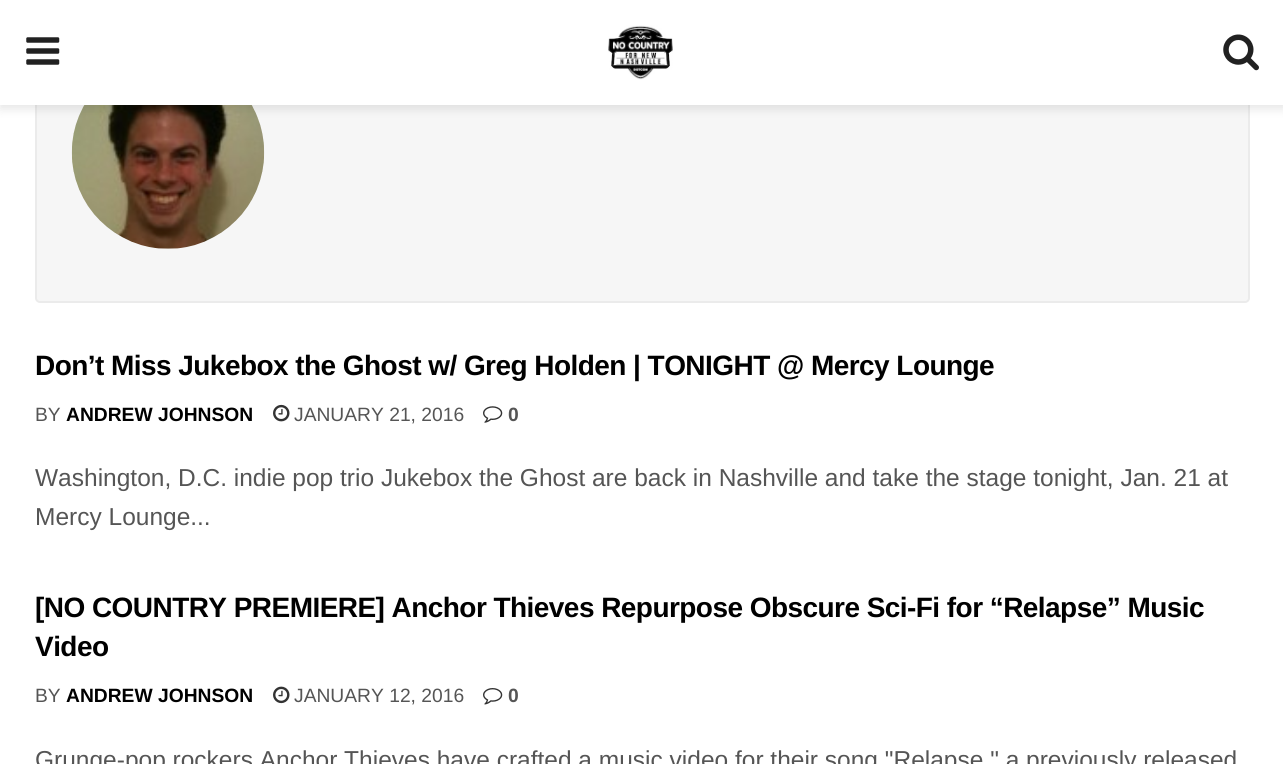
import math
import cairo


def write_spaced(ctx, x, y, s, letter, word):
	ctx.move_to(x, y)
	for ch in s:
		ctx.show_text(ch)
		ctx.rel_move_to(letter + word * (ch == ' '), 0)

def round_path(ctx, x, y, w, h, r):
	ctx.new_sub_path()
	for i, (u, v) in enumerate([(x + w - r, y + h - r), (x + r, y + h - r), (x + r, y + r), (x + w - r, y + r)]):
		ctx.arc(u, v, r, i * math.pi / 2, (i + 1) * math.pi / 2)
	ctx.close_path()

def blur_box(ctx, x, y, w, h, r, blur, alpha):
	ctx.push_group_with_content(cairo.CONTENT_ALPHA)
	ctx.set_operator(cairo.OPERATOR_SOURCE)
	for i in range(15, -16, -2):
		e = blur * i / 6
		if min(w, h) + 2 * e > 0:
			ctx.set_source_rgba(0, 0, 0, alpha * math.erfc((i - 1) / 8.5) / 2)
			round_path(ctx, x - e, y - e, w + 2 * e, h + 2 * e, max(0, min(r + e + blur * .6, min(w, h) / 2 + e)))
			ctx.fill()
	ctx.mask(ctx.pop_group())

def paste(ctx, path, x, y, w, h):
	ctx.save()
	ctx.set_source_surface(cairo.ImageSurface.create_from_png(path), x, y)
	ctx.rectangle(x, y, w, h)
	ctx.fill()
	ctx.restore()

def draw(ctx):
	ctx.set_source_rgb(1, 1, 1)
	ctx.paint()
	ctx.set_source_rgb(0.961, 0.961, 0.961)
	round_path(ctx, 36, 3, 1213, 299, 4)
	ctx.fill_preserve()
	ctx.set_source_rgb(0.918, 0.918, 0.918)
	ctx.stroke()
	paste(ctx, 'media/4.png', 71, 105, 194, 144)
	ctx.set_source_rgb(0, 0, 0)
	blur_box(ctx, 0, 4, 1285, 105, 0, 5, 0.1)
	ctx.set_source_rgb(1, 1, 1)
	ctx.rectangle(0, 0, 1283, 105)
	ctx.fill()
	paste(ctx, 'media/1.png', 26, 37, 34, 28)
	paste(ctx, 'media/2.png', 608, 25, 65, 55)
	paste(ctx, 'media/3.png', 1223, 34, 36, 37)
	ctx.select_font_face('Liberation Sans', cairo.FONT_SLANT_NORMAL, cairo.FONT_WEIGHT_BOLD)
	ctx.set_font_size(28)
	ctx.set_source_rgb(0, 0, 0)
	write_spaced(ctx, 35, 375, 'Don’t Miss Jukebox the Ghost w/ Greg Holden | TONIGHT @ Mercy Lounge', -0.55, 0)
	ctx.select_font_face('Liberation Sans')
	ctx.set_font_size(19.25)
	ctx.set_source_rgb(0.333, 0.333, 0.333)
	ctx.move_to(35, 421)
	ctx.show_text('BY')
	ctx.select_font_face('Liberation Sans', cairo.FONT_SLANT_NORMAL, cairo.FONT_WEIGHT_BOLD)
	ctx.set_source_rgb(0, 0, 0)
	ctx.move_to(66, 421)
	ctx.show_text('ANDREW JOHNSON')
	paste(ctx, 'media/5.png', 273, 404, 17, 18)
	ctx.select_font_face('Liberation Sans')
	ctx.set_source_rgb(0.333, 0.333, 0.333)
	ctx.move_to(294, 421)
	ctx.show_text('JANUARY 21, 2016')
	paste(ctx, 'media/6.png', 483, 406, 20, 17)
	ctx.select_font_face('Liberation Sans', cairo.FONT_SLANT_NORMAL, cairo.FONT_WEIGHT_BOLD)
	ctx.move_to(508, 421)
	ctx.show_text('0')
	ctx.select_font_face('Liberation Sans')
	ctx.set_font_size(24.5)
	ctx.move_to(35, 486)
	ctx.show_text('Washington, D.C. indie pop trio Jukebox the Ghost are back in Nashville and take the stage tonight, Jan. 21 at')
	ctx.move_to(35, 525)
	ctx.show_text('Mercy Lounge...')
	ctx.select_font_face('Liberation Sans', cairo.FONT_SLANT_NORMAL, cairo.FONT_WEIGHT_BOLD)
	ctx.set_font_size(28)
	ctx.set_source_rgb(0, 0, 0)
	write_spaced(ctx, 35, 617, '[NO COUNTRY PREMIERE] Anchor Thieves Repurpose Obscure Sci-Fi for “Relapse” Music', -0.55, 0)
	write_spaced(ctx, 35, 656, 'Video', -0.55, 0)
	ctx.select_font_face('Liberation Sans')
	ctx.set_font_size(19.25)
	ctx.set_source_rgb(0.333, 0.333, 0.333)
	ctx.move_to(35, 702)
	ctx.show_text('BY')
	ctx.select_font_face('Liberation Sans', cairo.FONT_SLANT_NORMAL, cairo.FONT_WEIGHT_BOLD)
	ctx.set_source_rgb(0, 0, 0)
	ctx.move_to(66, 702)
	ctx.show_text('ANDREW JOHNSON')
	paste(ctx, 'media/7.png', 273, 686, 17, 18)
	ctx.select_font_face('Liberation Sans')
	ctx.set_source_rgb(0.333, 0.333, 0.333)
	ctx.move_to(294, 702)
	ctx.show_text('JANUARY 12, 2016')
	paste(ctx, 'media/8.png', 483, 688, 20, 17)
	ctx.select_font_face('Liberation Sans', cairo.FONT_SLANT_NORMAL, cairo.FONT_WEIGHT_BOLD)
	ctx.move_to(508, 702)
	ctx.show_text('0')
	ctx.select_font_face('Liberation Sans')
	ctx.set_font_size(24.5)
	ctx.move_to(35, 768)
	ctx.show_text('Grunge-pop rockers Anchor Thieves have crafted a music video for their song "Relapse," a previously released')


surface = cairo.ImageSurface(cairo.FORMAT_RGB24, 1283, 764)
ctx = cairo.Context(surface)
options = cairo.FontOptions()
options.set_hint_metrics(cairo.HINT_METRICS_OFF)
options.set_hint_style(cairo.HINT_STYLE_NONE)
ctx.set_font_options(options)
ctx.set_miter_limit(4)
draw(ctx)
surface.write_to_png('image.png')
